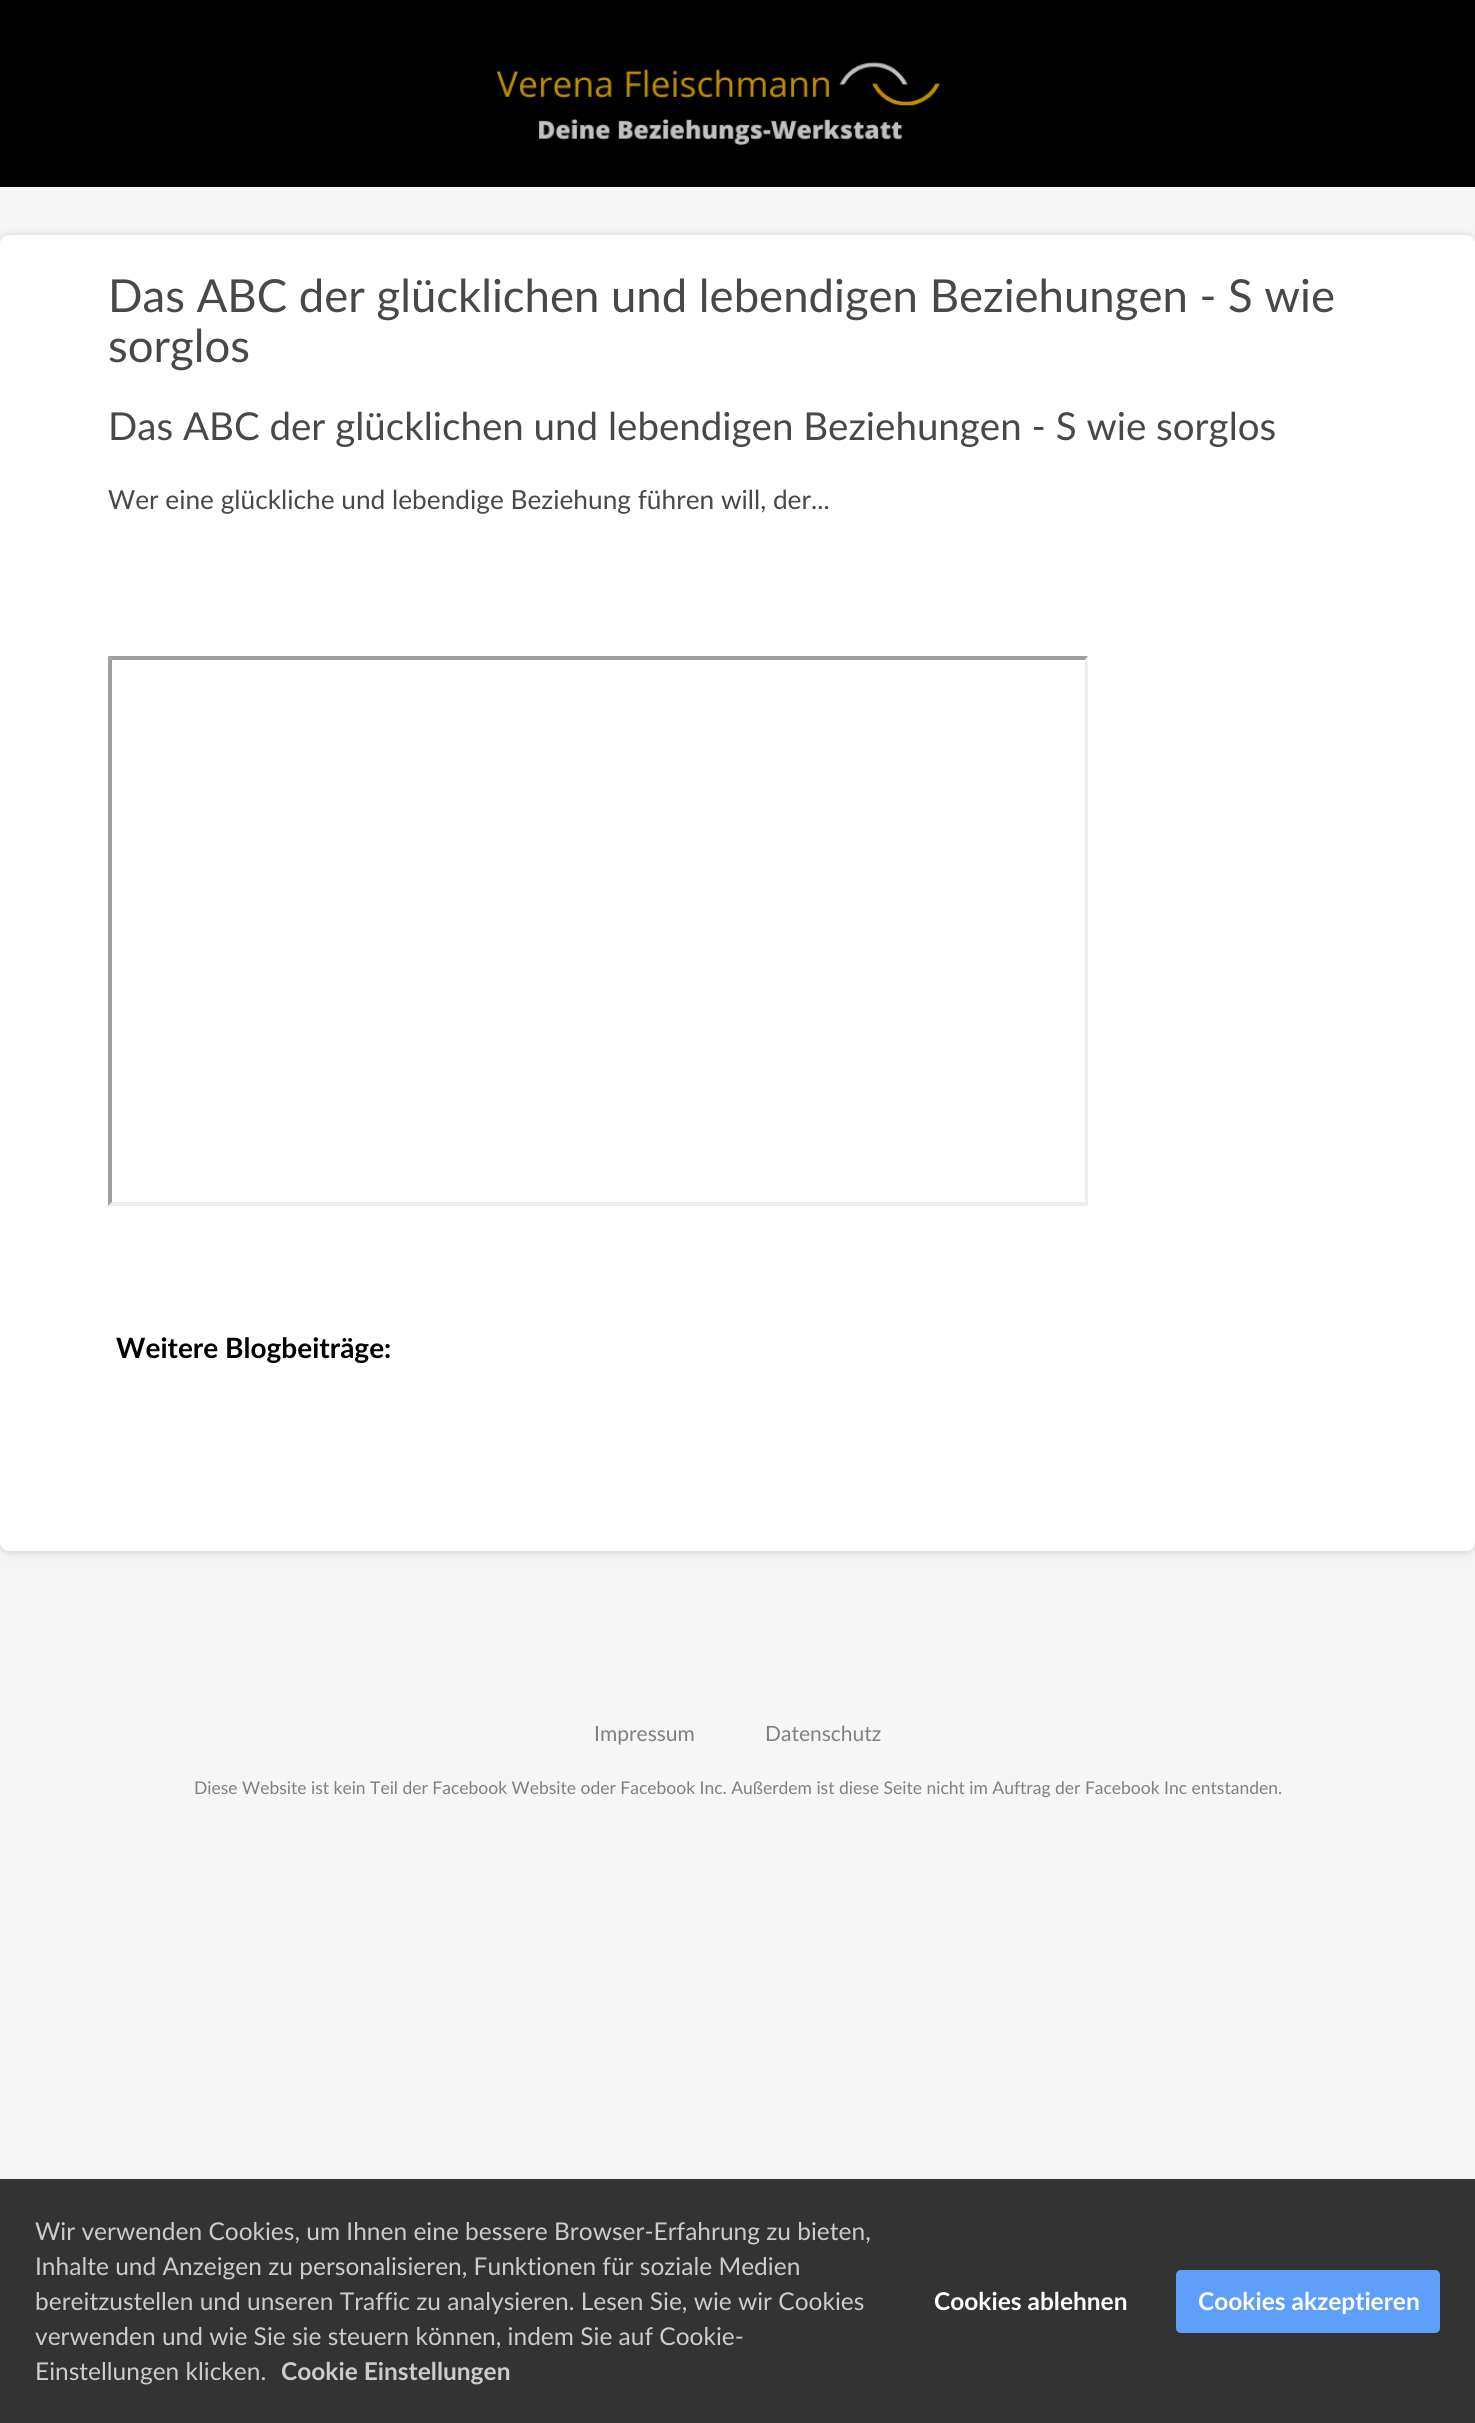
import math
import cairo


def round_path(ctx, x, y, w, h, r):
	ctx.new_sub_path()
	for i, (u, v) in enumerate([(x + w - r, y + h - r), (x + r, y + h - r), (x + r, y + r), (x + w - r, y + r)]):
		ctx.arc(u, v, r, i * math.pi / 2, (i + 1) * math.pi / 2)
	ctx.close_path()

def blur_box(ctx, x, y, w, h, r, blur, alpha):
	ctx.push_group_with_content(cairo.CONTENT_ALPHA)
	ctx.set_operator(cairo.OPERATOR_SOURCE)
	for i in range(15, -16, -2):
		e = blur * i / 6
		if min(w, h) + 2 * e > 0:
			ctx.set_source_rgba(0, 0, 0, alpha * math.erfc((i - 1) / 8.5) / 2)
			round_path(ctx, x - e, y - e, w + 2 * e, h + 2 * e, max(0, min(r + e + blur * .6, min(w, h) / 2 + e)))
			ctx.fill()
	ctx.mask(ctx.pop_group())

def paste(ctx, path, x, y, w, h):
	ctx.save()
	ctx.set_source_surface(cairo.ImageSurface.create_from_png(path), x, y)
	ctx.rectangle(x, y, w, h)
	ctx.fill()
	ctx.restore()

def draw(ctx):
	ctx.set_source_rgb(0.961, 0.961, 0.961)
	ctx.paint()
	ctx.set_source_rgb(0, 0, 0)
	ctx.rectangle(0, 0, 1475, 187)
	ctx.fill()
	paste(ctx, 'media/1.png', 496, 62, 445, 83)
	ctx.set_source_rgb(0.8, 0.8, 0.8)
	blur_box(ctx, 0, 236, 1475, 1316, 9, 4.5, 1)
	ctx.set_source_rgb(1, 1, 1)
	round_path(ctx, 0, 235, 1475, 1316, 9)
	ctx.fill()
	ctx.select_font_face('Lato')
	ctx.set_font_size(45.5)
	ctx.set_source_rgb(0.282, 0.282, 0.282)
	ctx.move_to(108, 312)
	ctx.show_text('Das ABC der glücklichen und lebendigen Beziehungen - S wie')
	ctx.move_to(108, 362)
	ctx.show_text('sorglos')
	ctx.set_font_size(38.5)
	ctx.move_to(108, 440)
	ctx.show_text('Das ABC der glücklichen und lebendigen Beziehungen - S wie sorglos')
	ctx.set_font_size(26.25)
	ctx.move_to(108, 509)
	ctx.show_text('Wer eine glückliche und lebendige Beziehung führen will, der...')
	ctx.set_source_rgb(0.624, 0.624, 0.624)
	ctx.new_path()
	ctx.move_to(108, 656)
	ctx.line_to(1088, 656)
	ctx.line_to(1085, 660)
	ctx.line_to(112, 660)
	ctx.close_path()
	ctx.fill()
	ctx.set_source_rgb(0.933, 0.933, 0.933)
	ctx.new_path()
	ctx.move_to(1088, 656)
	ctx.line_to(1088, 1206)
	ctx.line_to(1085, 1202)
	ctx.line_to(1085, 660)
	ctx.close_path()
	ctx.fill()
	ctx.new_path()
	ctx.move_to(1088, 1206)
	ctx.line_to(108, 1206)
	ctx.line_to(112, 1202)
	ctx.line_to(1085, 1202)
	ctx.close_path()
	ctx.fill()
	ctx.set_source_rgb(0.624, 0.624, 0.624)
	ctx.new_path()
	ctx.move_to(108, 1206)
	ctx.line_to(108, 656)
	ctx.line_to(112, 660)
	ctx.line_to(112, 1202)
	ctx.close_path()
	ctx.fill()
	ctx.select_font_face('Lato', cairo.FONT_SLANT_NORMAL, cairo.FONT_WEIGHT_BOLD)
	ctx.set_font_size(28)
	ctx.set_source_rgb(0, 0, 0)
	ctx.move_to(116, 1358)
	ctx.show_text('Weitere Blogbeiträge:')
	ctx.select_font_face('Lato')
	ctx.set_font_size(21)
	ctx.set_source_rgb(0.502, 0.502, 0.502)
	ctx.move_to(594, 1741)
	ctx.show_text('Impressum')
	ctx.move_to(765, 1741)
	ctx.show_text('Datenschutz')
	ctx.set_font_size(17.5)
	ctx.move_to(194, 1794)
	ctx.show_text('Diese Website ist kein Teil der Facebook Website oder Facebook Inc. Außerdem ist diese Seite nicht im Auftrag der Facebook Inc entstanden.')
	ctx.set_source_rgb(0.2, 0.2, 0.2)
	ctx.rectangle(0, 2179, 1475, 244)
	ctx.fill()
	ctx.set_font_size(24.5)
	ctx.set_source_rgb(0.8, 0.8, 0.8)
	for x, y, s in [
		(35, 2240, 'Wir verwenden Cookies, um Ihnen eine bessere Browser-Erfahrung zu bieten,'),
		(35, 2275, 'Inhalte und Anzeigen zu personalisieren, Funktionen für soziale Medien'),
		(35, 2310, 'bereitzustellen und unseren Traffic zu analysieren. Lesen Sie, wie wir Cookies'),
		(35, 2345, 'verwenden und wie Sie sie steuern können, indem Sie auf Cookie-'),
		(35, 2380, 'Einstellungen klicken.'),
	]:
		ctx.move_to(x, y)
		ctx.show_text(s)
	ctx.select_font_face('Lato', cairo.FONT_SLANT_NORMAL, cairo.FONT_WEIGHT_BOLD)
	ctx.move_to(281, 2380)
	ctx.show_text('Cookie Einstellungen')
	ctx.set_source_rgb(1, 1, 1)
	ctx.move_to(934, 2310)
	ctx.show_text('Cookies ablehnen')
	ctx.set_source_rgb(0.365, 0.624, 0.984)
	round_path(ctx, 1176, 2270, 264, 63, 5)
	ctx.fill()
	ctx.set_source_rgb(1, 1, 1)
	ctx.move_to(1198, 2310)
	ctx.show_text('Cookies akzeptieren')


surface = cairo.ImageSurface(cairo.FORMAT_RGB24, 1475, 2423)
ctx = cairo.Context(surface)
options = cairo.FontOptions()
options.set_hint_metrics(cairo.HINT_METRICS_OFF)
options.set_hint_style(cairo.HINT_STYLE_NONE)
ctx.set_font_options(options)
ctx.set_miter_limit(4)
draw(ctx)
surface.write_to_png('image.png')
